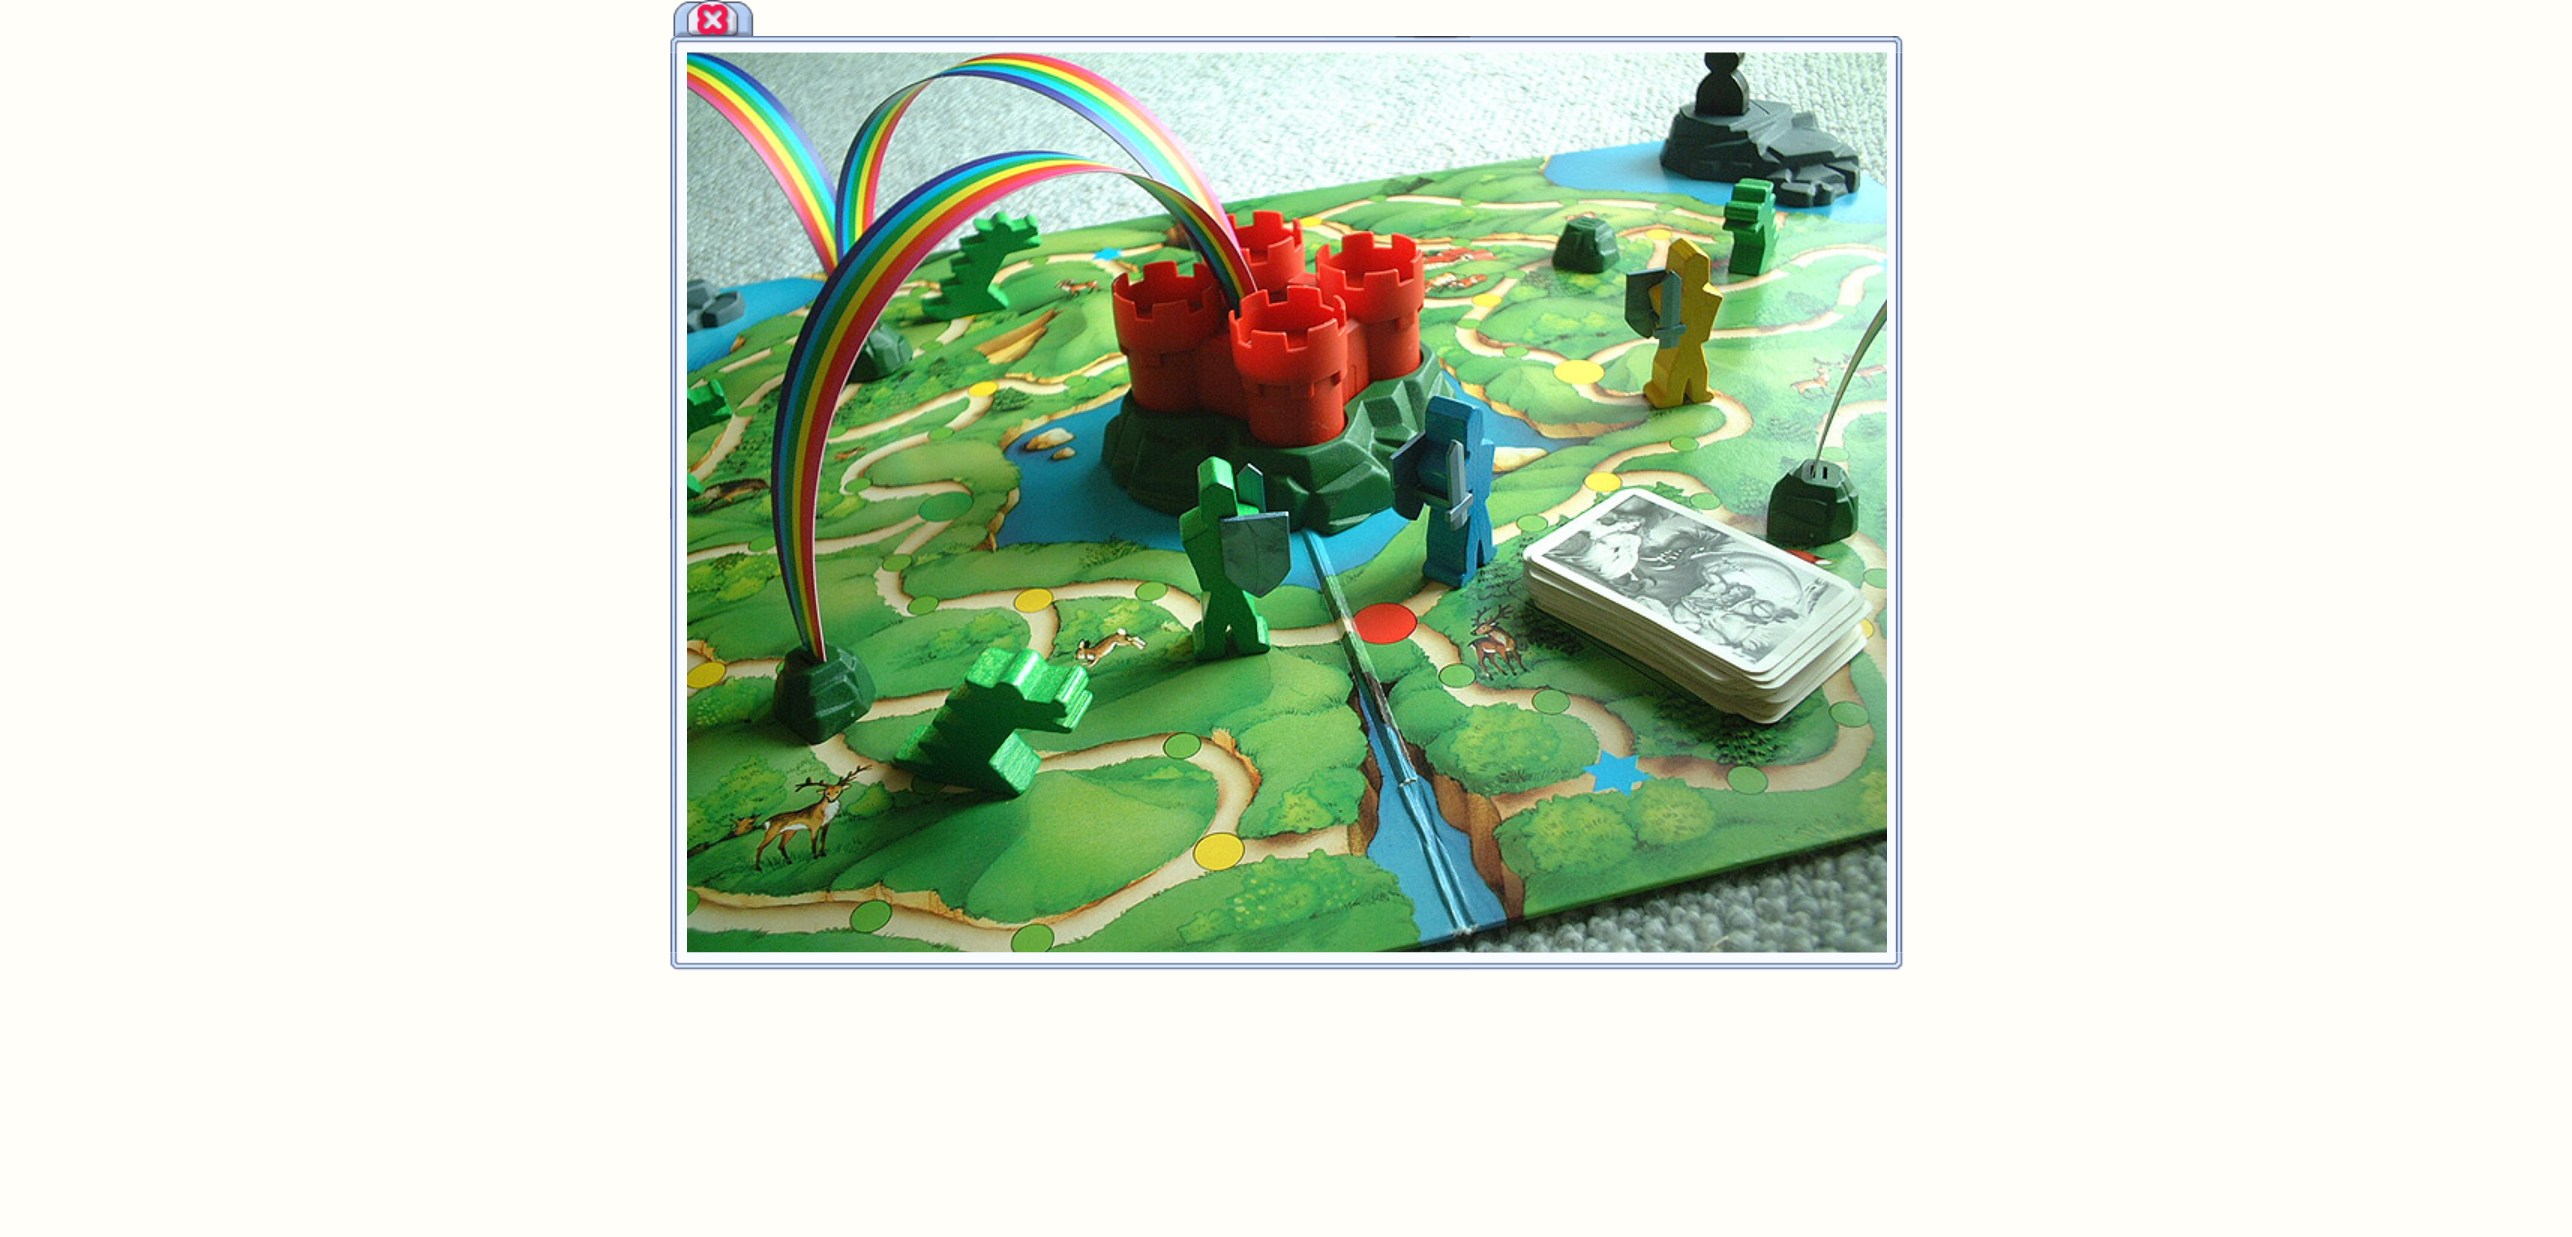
import math
import cairo


def paste(ctx, path, x, y, w, h):
	ctx.save()
	ctx.set_source_surface(cairo.ImageSurface.create_from_png(path), x, y)
	ctx.rectangle(x, y, w, h)
	ctx.fill()
	ctx.restore()

def draw(ctx):
	ctx.set_source_rgb(1, 0.996, 0.969)
	ctx.paint()
	paste(ctx, 'media/1.png', 671, 0, 88, 36)
	paste(ctx, 'media/6.png', 670, 52, 11, 901)
	paste(ctx, 'media/2.png', 670, 36, 11, 17)
	paste(ctx, 'media/3.png', 681, 36, 1212, 16)
	paste(ctx, 'media/4.png', 681, 36, 789, 6)
	paste(ctx, 'media/9.png', 1893, 52, 11, 901)
	paste(ctx, 'media/5.png', 1893, 36, 11, 17)
	paste(ctx, 'media/7.png', 670, 487, 7, 32)
	ctx.set_source_rgb(0.976, 0.988, 0.996)
	ctx.rectangle(681, 53, 1212, 900)
	ctx.fill()
	paste(ctx, 'media/8.png', 687, 52, 1200, 901)
	paste(ctx, 'media/10.png', 1895, 487, 9, 32)
	paste(ctx, 'media/11.png', 670, 952, 11, 19)
	paste(ctx, 'media/12.png', 681, 953, 1212, 18)
	paste(ctx, 'media/13.png', 681, 952, 789, 19)
	paste(ctx, 'media/14.png', 1893, 952, 11, 19)


surface = cairo.ImageSurface(cairo.FORMAT_RGB24, 2572, 1237)
ctx = cairo.Context(surface)
options = cairo.FontOptions()
options.set_hint_metrics(cairo.HINT_METRICS_OFF)
options.set_hint_style(cairo.HINT_STYLE_NONE)
ctx.set_font_options(options)
ctx.set_miter_limit(4)
draw(ctx)
surface.write_to_png('image.png')
